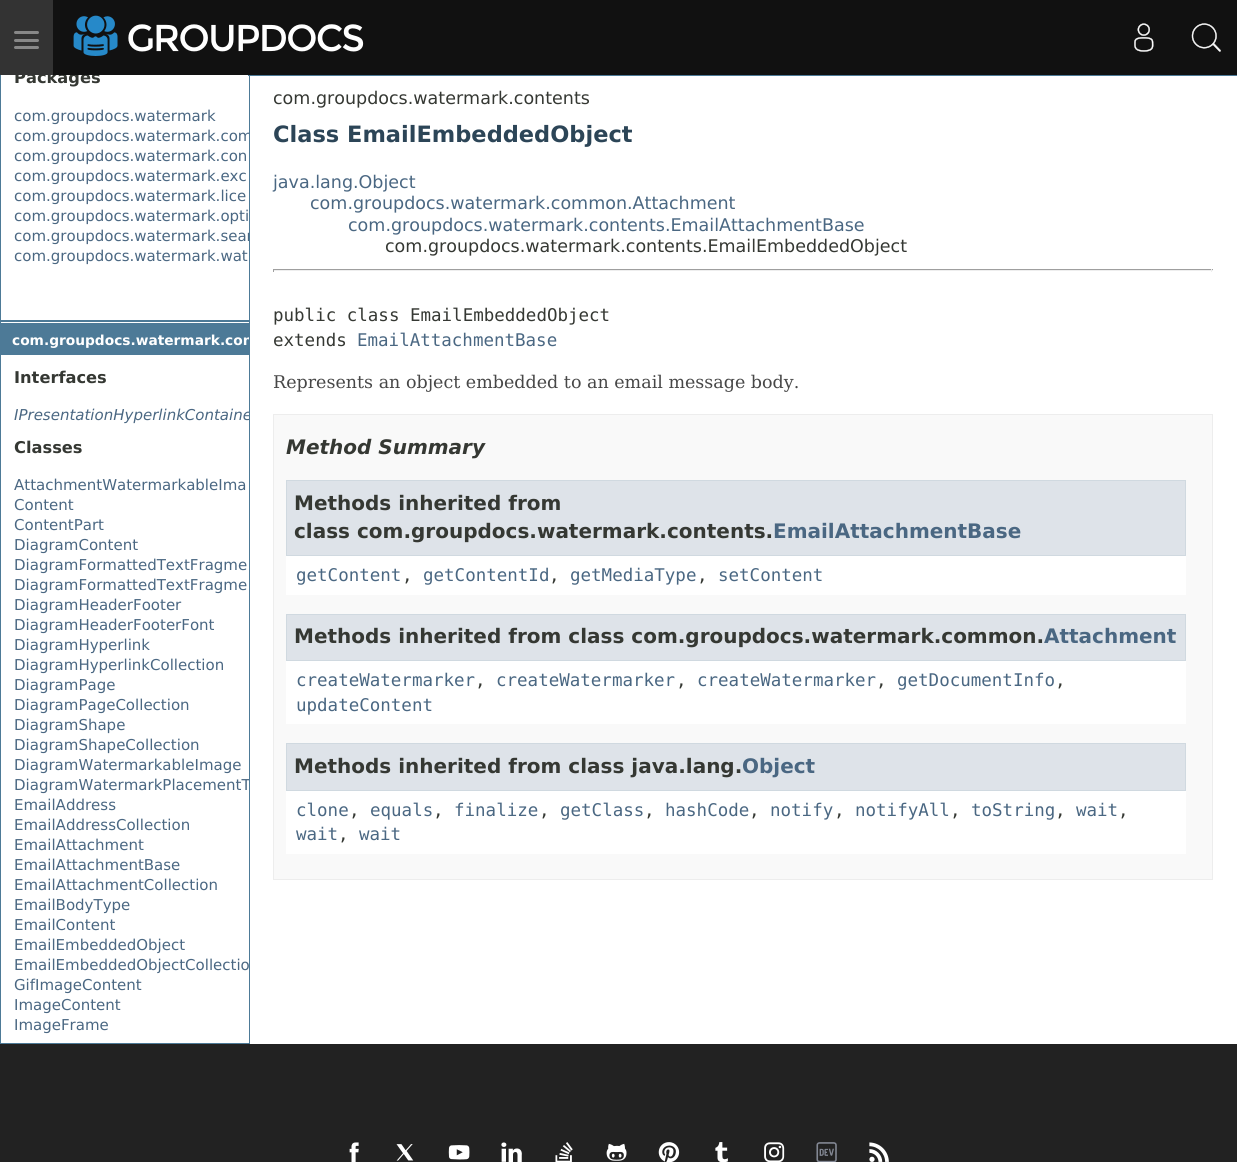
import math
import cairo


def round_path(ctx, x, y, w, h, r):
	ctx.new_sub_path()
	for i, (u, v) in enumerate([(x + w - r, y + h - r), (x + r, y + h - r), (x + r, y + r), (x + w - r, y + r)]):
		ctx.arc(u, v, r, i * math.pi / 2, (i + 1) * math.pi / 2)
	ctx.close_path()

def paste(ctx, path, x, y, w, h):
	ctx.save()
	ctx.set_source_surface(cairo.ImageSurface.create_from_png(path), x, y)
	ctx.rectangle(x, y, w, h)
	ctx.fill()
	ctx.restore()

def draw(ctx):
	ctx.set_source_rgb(1, 1, 1)
	ctx.paint()
	ctx.rectangle(0.5, 21.5, 249, 299)
	ctx.set_source_rgb(0.302, 0.478, 0.592)
	ctx.set_line_width(1)
	ctx.stroke()
	ctx.select_font_face('DejaVu Sans', cairo.FONT_SLANT_NORMAL, cairo.FONT_WEIGHT_BOLD)
	ctx.set_font_size(16.25)
	ctx.set_source_rgb(0.208, 0.22, 0.2)
	ctx.move_to(14, 83)
	ctx.show_text('Packages')
	ctx.set_source_rgb(0.067, 0.067, 0.067)
	ctx.rectangle(53, 0, 1184, 75)
	ctx.fill()
	ctx.set_source_rgb(0.2, 0.2, 0.2)
	ctx.rectangle(0, 0, 53, 75)
	ctx.fill()
	ctx.set_source_rgb(0.533, 0.533, 0.533)
	round_path(ctx, 14, 31, 25, 3, 1.5)
	ctx.fill()
	round_path(ctx, 14, 39, 25, 3, 1.5)
	ctx.fill()
	round_path(ctx, 14, 46, 25, 3, 1.5)
	ctx.fill()
	paste(ctx, 'media/1.png', 73, 15, 291, 41)
	paste(ctx, 'media/2.png', 1134, 23, 20, 29)
	paste(ctx, 'media/3.png', 1191, 23, 30, 29)
	ctx.select_font_face('DejaVu Sans')
	ctx.set_font_size(15)
	ctx.set_source_rgb(0.29, 0.404, 0.51)
	ctx.move_to(14, 121)
	ctx.show_text('com.groupdocs.watermark')
	ctx.save()
	ctx.rectangle(1, 23, 248, 297)
	ctx.clip()
	ctx.move_to(14, 141)
	ctx.show_text('com.groupdocs.watermark.com')
	ctx.restore()
	for x, y, s in [
		(14, 161, 'com.groupdocs.watermark.con'),
		(14, 181, 'com.groupdocs.watermark.exc'),
		(14, 201, 'com.groupdocs.watermark.lice'),
		(14, 221, 'com.groupdocs.watermark.opti'),
	]:
		ctx.move_to(x, y)
		ctx.show_text(s)
	ctx.save()
	ctx.rectangle(1, 23, 248, 297)
	ctx.clip()
	ctx.move_to(14, 241)
	ctx.show_text('com.groupdocs.watermark.sear')
	ctx.restore()
	ctx.move_to(14, 261)
	ctx.show_text('com.groupdocs.watermark.wat')
	ctx.rectangle(0.5, 321.5, 249, 722)
	ctx.set_source_rgb(0.302, 0.478, 0.592)
	ctx.stroke()
	ctx.rectangle(1, 323, 248, 32)
	ctx.fill()
	ctx.save()
	ctx.rectangle(1, 323, 248, 720)
	ctx.clip()
	ctx.select_font_face('DejaVu Sans', cairo.FONT_SLANT_NORMAL, cairo.FONT_WEIGHT_BOLD)
	ctx.set_font_size(13.75)
	ctx.set_source_rgb(1, 1, 1)
	ctx.move_to(12, 345)
	ctx.show_text('com.groupdocs.watermark.con')
	ctx.restore()
	ctx.select_font_face('DejaVu Sans', cairo.FONT_SLANT_NORMAL, cairo.FONT_WEIGHT_BOLD)
	ctx.set_font_size(16.25)
	ctx.set_source_rgb(0.208, 0.22, 0.2)
	ctx.move_to(14, 383)
	ctx.show_text('Interfaces')
	ctx.save()
	ctx.rectangle(1, 323, 248, 720)
	ctx.clip()
	ctx.select_font_face('DejaVu Sans', cairo.FONT_SLANT_ITALIC)
	ctx.set_font_size(15)
	ctx.set_source_rgb(0.29, 0.404, 0.51)
	ctx.move_to(14, 420)
	ctx.show_text('IPresentationHyperlinkContaine')
	ctx.restore()
	ctx.move_to(14, 453)
	ctx.show_text('Classes')
	ctx.select_font_face('DejaVu Sans')
	ctx.set_font_size(15)
	ctx.set_source_rgb(0.29, 0.404, 0.51)
	for x, y, s in [
		(14, 490, 'AttachmentWatermarkableIma'),
		(14, 510, 'Content'),
		(14, 530, 'ContentPart'),
		(14, 550, 'DiagramContent'),
		(14, 570, 'DiagramFormattedTextFragme'),
		(14, 590, 'DiagramFormattedTextFragme'),
		(14, 610, 'DiagramHeaderFooter'),
		(14, 630, 'DiagramHeaderFooterFont'),
		(14, 650, 'DiagramHyperlink'),
		(14, 670, 'DiagramHyperlinkCollection'),
		(14, 690, 'DiagramPage'),
		(14, 710, 'DiagramPageCollection'),
		(14, 730, 'DiagramShape'),
		(14, 750, 'DiagramShapeCollection'),
		(14, 770, 'DiagramWatermarkableImage'),
	]:
		ctx.move_to(x, y)
		ctx.show_text(s)
	ctx.save()
	ctx.rectangle(1, 323, 248, 720)
	ctx.clip()
	ctx.move_to(14, 790)
	ctx.show_text('DiagramWatermarkPlacementT')
	ctx.restore()
	for x, y, s in [
		(14, 810, 'EmailAddress'),
		(14, 830, 'EmailAddressCollection'),
		(14, 850, 'EmailAttachment'),
		(14, 870, 'EmailAttachmentBase'),
		(14, 890, 'EmailAttachmentCollection'),
		(14, 910, 'EmailBodyType'),
		(14, 930, 'EmailContent'),
		(14, 950, 'EmailEmbeddedObject'),
		(14, 970, 'EmailEmbeddedObjectCollectio'),
		(14, 990, 'GifImageContent'),
		(14, 1010, 'ImageContent'),
		(14, 1030, 'ImageFrame'),
	]:
		ctx.move_to(x, y)
		ctx.show_text(s)
	ctx.set_source_rgb(0.302, 0.478, 0.592)
	ctx.rectangle(248, 75, 989, 1)
	ctx.fill()
	ctx.set_font_size(17.5)
	ctx.set_source_rgb(0.208, 0.22, 0.2)
	ctx.move_to(273, 104)
	ctx.show_text('com.groupdocs.watermark.contents')
	ctx.select_font_face('DejaVu Sans', cairo.FONT_SLANT_NORMAL, cairo.FONT_WEIGHT_BOLD)
	ctx.set_font_size(22.5)
	ctx.set_source_rgb(0.173, 0.271, 0.341)
	ctx.move_to(273, 142)
	ctx.show_text('Class EmailEmbeddedObject')
	ctx.select_font_face('DejaVu Sans')
	ctx.set_font_size(17.5)
	ctx.set_source_rgb(0.29, 0.404, 0.51)
	for x, y, s in [
		(273, 188, 'java.lang.Object'),
		(310, 209, 'com.groupdocs.watermark.common.Attachment'),
		(348, 231, 'com.groupdocs.watermark.contents.EmailAttachmentBase'),
	]:
		ctx.move_to(x, y)
		ctx.show_text(s)
	ctx.set_source_rgb(0.208, 0.22, 0.2)
	ctx.move_to(385, 252)
	ctx.show_text('com.groupdocs.watermark.contents.EmailEmbeddedObject')
	ctx.set_source_rgb(0.624, 0.624, 0.624)
	ctx.rectangle(273, 269, 940, 1)
	ctx.fill()
	ctx.set_source_rgb(0.933, 0.933, 0.933)
	ctx.rectangle(1211, 269, 1, 3)
	ctx.rectangle(273, 270, 940, 1)
	ctx.fill()
	ctx.set_source_rgb(0.624, 0.624, 0.624)
	ctx.rectangle(273, 269, 1, 3)
	ctx.fill()
	ctx.select_font_face('DejaVu Sans Mono')
	ctx.set_source_rgb(0.208, 0.22, 0.2)
	ctx.move_to(273, 321)
	ctx.show_text('public class EmailEmbeddedObject')
	ctx.move_to(273, 346)
	ctx.show_text('extends')
	ctx.set_source_rgb(0.29, 0.404, 0.51)
	ctx.move_to(357, 346)
	ctx.show_text('EmailAttachmentBase')
	ctx.select_font_face('DejaVu Serif')
	ctx.set_source_rgb(0.278, 0.278, 0.278)
	ctx.move_to(273, 388)
	ctx.show_text('Represents an object embedded to an email message body.')
	ctx.set_source_rgb(0.973, 0.973, 0.973)
	ctx.rectangle(273.5, 414.5, 939, 465)
	ctx.fill_preserve()
	ctx.set_source_rgb(0.929, 0.929, 0.929)
	ctx.stroke()
	ctx.select_font_face('DejaVu Sans', cairo.FONT_SLANT_ITALIC, cairo.FONT_WEIGHT_BOLD)
	ctx.set_font_size(20)
	ctx.set_source_rgb(0.208, 0.22, 0.2)
	ctx.move_to(286, 454)
	ctx.show_text('Method Summary')
	ctx.set_source_rgb(1, 1, 1)
	ctx.rectangle(286, 556, 900, 39)
	ctx.fill()
	ctx.set_source_rgb(0.871, 0.89, 0.914)
	ctx.rectangle(286.5, 480.5, 899, 75)
	ctx.fill_preserve()
	ctx.set_source_rgb(0.816, 0.851, 0.878)
	ctx.stroke()
	ctx.select_font_face('DejaVu Sans', cairo.FONT_SLANT_NORMAL, cairo.FONT_WEIGHT_BOLD)
	ctx.set_source_rgb(0.208, 0.22, 0.2)
	ctx.move_to(294, 510)
	ctx.show_text('Methods inherited from')
	ctx.move_to(294, 538)
	ctx.show_text('class com.groupdocs.watermark.contents.')
	ctx.set_source_rgb(0.29, 0.404, 0.51)
	ctx.move_to(773, 538)
	ctx.show_text('EmailAttachmentBase')
	ctx.select_font_face('DejaVu Sans Mono')
	ctx.set_font_size(17.5)
	ctx.move_to(296, 581)
	ctx.show_text('getContent')
	ctx.set_source_rgb(0.208, 0.22, 0.2)
	ctx.move_to(402, 581)
	ctx.show_text(',')
	ctx.set_source_rgb(0.29, 0.404, 0.51)
	ctx.move_to(423, 581)
	ctx.show_text('getContentId')
	ctx.set_source_rgb(0.208, 0.22, 0.2)
	ctx.move_to(549, 581)
	ctx.show_text(',')
	ctx.set_source_rgb(0.29, 0.404, 0.51)
	ctx.move_to(570, 581)
	ctx.show_text('getMediaType')
	ctx.set_source_rgb(0.208, 0.22, 0.2)
	ctx.move_to(697, 581)
	ctx.show_text(',')
	ctx.set_source_rgb(0.29, 0.404, 0.51)
	ctx.move_to(718, 581)
	ctx.show_text('setContent')
	ctx.set_source_rgb(1, 1, 1)
	ctx.rectangle(286, 661, 900, 63)
	ctx.fill()
	ctx.set_source_rgb(0.871, 0.89, 0.914)
	ctx.rectangle(286.5, 614.5, 899, 46)
	ctx.fill_preserve()
	ctx.set_source_rgb(0.816, 0.851, 0.878)
	ctx.stroke()
	ctx.select_font_face('DejaVu Sans', cairo.FONT_SLANT_NORMAL, cairo.FONT_WEIGHT_BOLD)
	ctx.set_font_size(20)
	ctx.set_source_rgb(0.208, 0.22, 0.2)
	ctx.move_to(294, 643)
	ctx.show_text('Methods inherited from class com.groupdocs.watermark.common.')
	ctx.set_source_rgb(0.29, 0.404, 0.51)
	ctx.move_to(1044, 643)
	ctx.show_text('Attachment')
	ctx.select_font_face('DejaVu Sans Mono')
	ctx.set_font_size(17.5)
	ctx.move_to(296, 686)
	ctx.show_text('createWatermarker')
	ctx.set_source_rgb(0.208, 0.22, 0.2)
	ctx.move_to(475, 686)
	ctx.show_text(',')
	ctx.set_source_rgb(0.29, 0.404, 0.51)
	ctx.move_to(496, 686)
	ctx.show_text('createWatermarker')
	ctx.set_source_rgb(0.208, 0.22, 0.2)
	ctx.move_to(676, 686)
	ctx.show_text(',')
	ctx.set_source_rgb(0.29, 0.404, 0.51)
	ctx.move_to(697, 686)
	ctx.show_text('createWatermarker')
	ctx.set_source_rgb(0.208, 0.22, 0.2)
	ctx.move_to(876, 686)
	ctx.show_text(',')
	ctx.set_source_rgb(0.29, 0.404, 0.51)
	ctx.move_to(897, 686)
	ctx.show_text('getDocumentInfo')
	ctx.set_source_rgb(0.208, 0.22, 0.2)
	ctx.move_to(1055, 686)
	ctx.show_text(',')
	ctx.set_source_rgb(0.29, 0.404, 0.51)
	ctx.move_to(296, 711)
	ctx.show_text('updateContent')
	ctx.set_source_rgb(1, 1, 1)
	ctx.rectangle(286, 791, 900, 63)
	ctx.fill()
	ctx.set_source_rgb(0.871, 0.89, 0.914)
	ctx.rectangle(286.5, 743.5, 899, 47)
	ctx.fill_preserve()
	ctx.set_source_rgb(0.816, 0.851, 0.878)
	ctx.stroke()
	ctx.select_font_face('DejaVu Sans', cairo.FONT_SLANT_NORMAL, cairo.FONT_WEIGHT_BOLD)
	ctx.set_font_size(20)
	ctx.set_source_rgb(0.208, 0.22, 0.2)
	ctx.move_to(294, 773)
	ctx.show_text('Methods inherited from class java.lang.')
	ctx.set_source_rgb(0.29, 0.404, 0.51)
	ctx.move_to(742, 773)
	ctx.show_text('Object')
	ctx.select_font_face('DejaVu Sans Mono')
	ctx.set_font_size(17.5)
	ctx.move_to(296, 816)
	ctx.show_text('clone')
	ctx.set_source_rgb(0.208, 0.22, 0.2)
	ctx.move_to(349, 816)
	ctx.show_text(',')
	ctx.set_source_rgb(0.29, 0.404, 0.51)
	ctx.move_to(370, 816)
	ctx.show_text('equals')
	ctx.set_source_rgb(0.208, 0.22, 0.2)
	ctx.move_to(433, 816)
	ctx.show_text(',')
	ctx.set_source_rgb(0.29, 0.404, 0.51)
	ctx.move_to(454, 816)
	ctx.show_text('finalize')
	ctx.set_source_rgb(0.208, 0.22, 0.2)
	ctx.move_to(539, 816)
	ctx.show_text(',')
	ctx.set_source_rgb(0.29, 0.404, 0.51)
	ctx.move_to(560, 816)
	ctx.show_text('getClass')
	ctx.set_source_rgb(0.208, 0.22, 0.2)
	ctx.move_to(644, 816)
	ctx.show_text(',')
	ctx.set_source_rgb(0.29, 0.404, 0.51)
	ctx.move_to(665, 816)
	ctx.show_text('hashCode')
	ctx.set_source_rgb(0.208, 0.22, 0.2)
	ctx.move_to(749, 816)
	ctx.show_text(',')
	ctx.set_source_rgb(0.29, 0.404, 0.51)
	ctx.move_to(770, 816)
	ctx.show_text('notify')
	ctx.set_source_rgb(0.208, 0.22, 0.2)
	ctx.move_to(834, 816)
	ctx.show_text(',')
	ctx.set_source_rgb(0.29, 0.404, 0.51)
	ctx.move_to(855, 816)
	ctx.show_text('notifyAll')
	ctx.set_source_rgb(0.208, 0.22, 0.2)
	ctx.move_to(950, 816)
	ctx.show_text(',')
	ctx.set_source_rgb(0.29, 0.404, 0.51)
	ctx.move_to(971, 816)
	ctx.show_text('toString')
	ctx.set_source_rgb(0.208, 0.22, 0.2)
	ctx.move_to(1055, 816)
	ctx.show_text(',')
	ctx.set_source_rgb(0.29, 0.404, 0.51)
	ctx.move_to(1076, 816)
	ctx.show_text('wait')
	ctx.set_source_rgb(0.208, 0.22, 0.2)
	ctx.move_to(1118, 816)
	ctx.show_text(',')
	ctx.set_source_rgb(0.29, 0.404, 0.51)
	ctx.move_to(296, 840)
	ctx.show_text('wait')
	ctx.set_source_rgb(0.208, 0.22, 0.2)
	ctx.move_to(338, 840)
	ctx.show_text(',')
	ctx.set_source_rgb(0.29, 0.404, 0.51)
	ctx.move_to(359, 840)
	ctx.show_text('wait')
	gradient = cairo.LinearGradient(619, 1044, 619, 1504)
	gradient.add_color_stop_rgba(0.3, 0.133, 0.133, 0.133, 1)
	gradient.add_color_stop_rgba(1, 0.267, 0.267, 0.267, 1)
	ctx.set_source(gradient)
	ctx.rectangle(0, 1044, 1237, 118)
	ctx.fill()
	paste(ctx, 'media/4.png', 349, 1142, 10, 20)
	paste(ctx, 'media/5.png', 396, 1144, 18, 17)
	paste(ctx, 'media/6.png', 448, 1145, 22, 15)
	paste(ctx, 'media/7.png', 501, 1142, 21, 20)
	paste(ctx, 'media/8.png', 555, 1142, 18, 20)
	paste(ctx, 'media/9.png', 606, 1143, 21, 18)
	paste(ctx, 'media/10.png', 658, 1142, 22, 20)
	paste(ctx, 'media/11.png', 715, 1142, 13, 20)
	paste(ctx, 'media/12.png', 764, 1142, 21, 20)
	paste(ctx, 'media/13.png', 816, 1142, 21, 20)
	paste(ctx, 'media/14.png', 869, 1142, 20, 20)


surface = cairo.ImageSurface(cairo.FORMAT_RGB24, 1237, 1162)
ctx = cairo.Context(surface)
options = cairo.FontOptions()
options.set_hint_metrics(cairo.HINT_METRICS_OFF)
options.set_hint_style(cairo.HINT_STYLE_NONE)
ctx.set_font_options(options)
ctx.set_miter_limit(4)
draw(ctx)
surface.write_to_png('image.png')
